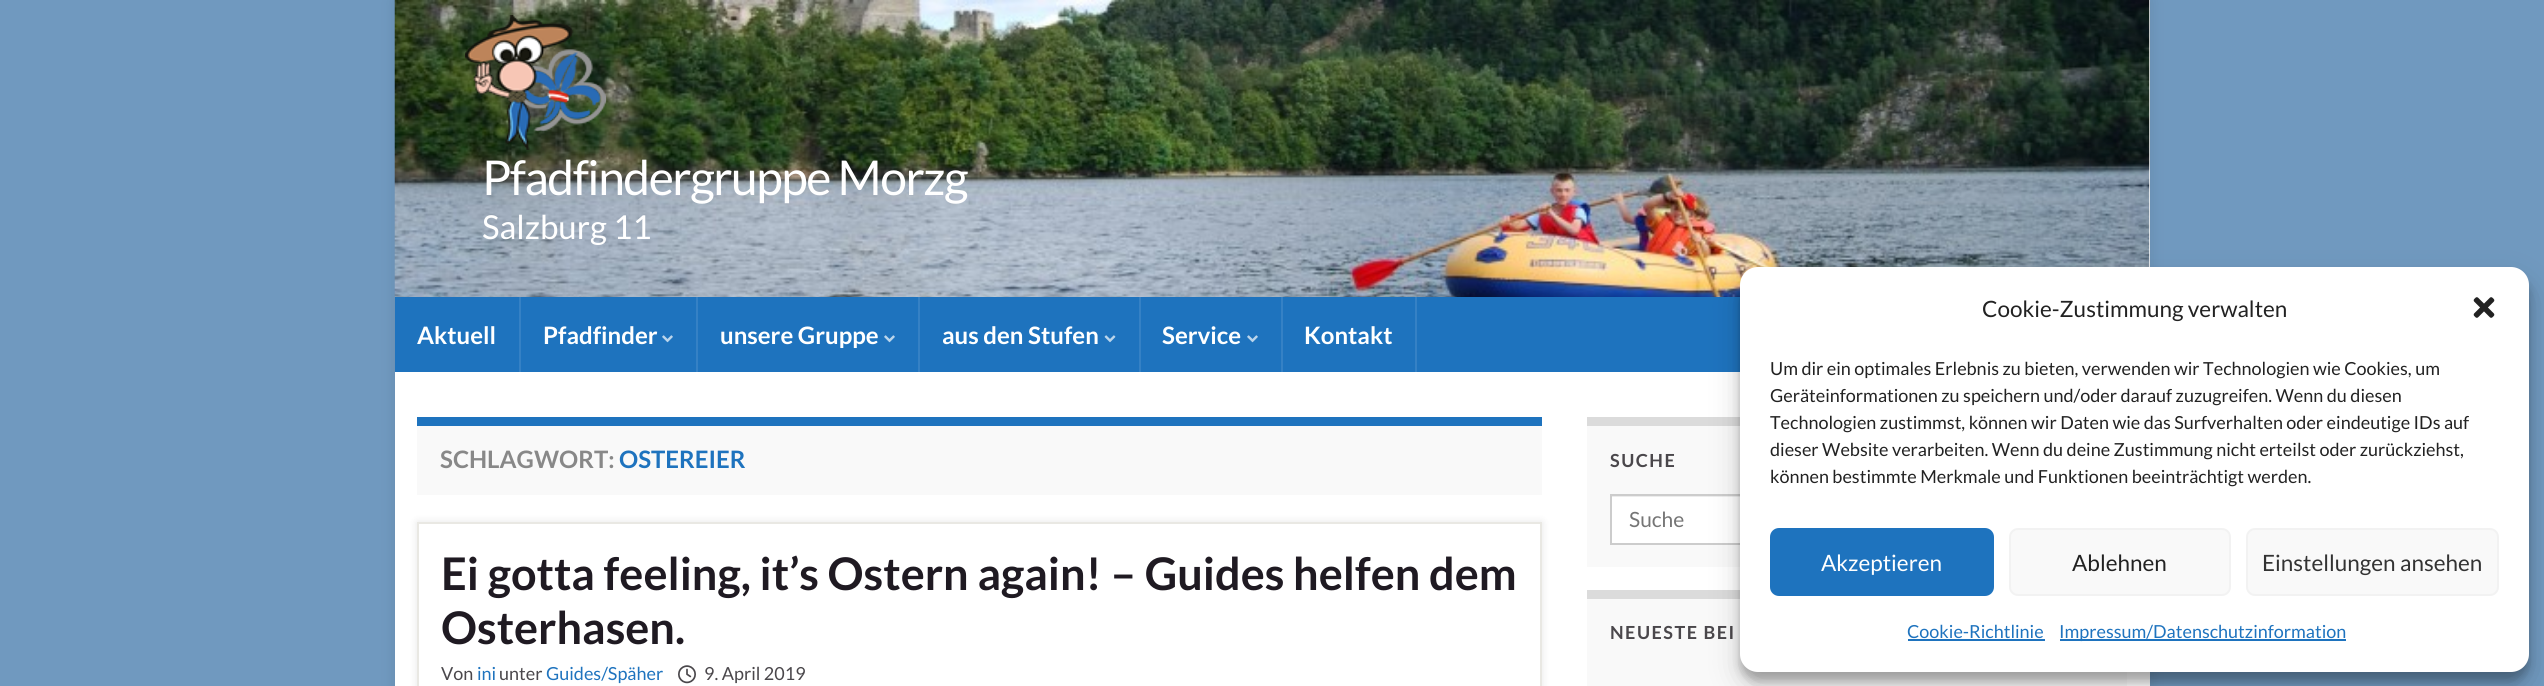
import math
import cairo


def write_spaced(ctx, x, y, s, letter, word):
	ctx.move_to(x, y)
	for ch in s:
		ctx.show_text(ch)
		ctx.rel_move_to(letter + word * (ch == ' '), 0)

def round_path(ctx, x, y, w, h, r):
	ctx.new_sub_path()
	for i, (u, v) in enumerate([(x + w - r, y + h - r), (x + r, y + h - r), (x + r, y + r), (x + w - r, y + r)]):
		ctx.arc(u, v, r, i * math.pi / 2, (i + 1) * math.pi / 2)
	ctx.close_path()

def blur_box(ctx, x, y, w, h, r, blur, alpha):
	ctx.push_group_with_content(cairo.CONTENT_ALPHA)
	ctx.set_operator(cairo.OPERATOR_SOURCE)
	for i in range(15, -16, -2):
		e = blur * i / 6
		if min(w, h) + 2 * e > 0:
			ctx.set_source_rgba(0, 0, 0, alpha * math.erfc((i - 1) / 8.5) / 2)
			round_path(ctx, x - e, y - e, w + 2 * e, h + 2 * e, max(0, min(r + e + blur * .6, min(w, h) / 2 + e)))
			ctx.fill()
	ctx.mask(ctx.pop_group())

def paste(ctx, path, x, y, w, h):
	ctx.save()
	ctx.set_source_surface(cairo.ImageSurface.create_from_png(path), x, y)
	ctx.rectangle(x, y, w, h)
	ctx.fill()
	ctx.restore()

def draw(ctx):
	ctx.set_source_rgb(0.439, 0.6, 0.749)
	ctx.paint()
	ctx.set_source_rgb(0, 0, 0)
	blur_box(ctx, 395, 0, 1755, 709, 0, 7.5, 0.1)
	ctx.set_source_rgb(1, 1, 1)
	ctx.rectangle(2149, 0, 1, 267)
	ctx.fill()
	paste(ctx, 'media/1.png', 394, 0, 1756, 297)
	paste(ctx, 'media/2.png', 465, 15, 141, 135)
	paste(ctx, 'media/3.png', 465, 15, 141, 135)
	ctx.set_source_rgb(0.118, 0.451, 0.745)
	ctx.rectangle(395, 297, 1345, 75)
	ctx.fill()
	ctx.select_font_face('Lato')
	ctx.set_font_size(48)
	ctx.set_source_rgb(1, 1, 1)
	write_spaced(ctx, 482, 195, 'Pfadfindergruppe Morzg', -1.5, 0)
	ctx.set_font_size(33)
	ctx.move_to(482, 239)
	ctx.show_text('Salzburg 11')
	ctx.set_source_rgb(0.208, 0.506, 0.773)
	ctx.rectangle(519, 297, 2, 75)
	ctx.fill()
	ctx.select_font_face('Lato', cairo.FONT_SLANT_NORMAL, cairo.FONT_WEIGHT_BOLD)
	ctx.set_font_size(24)
	ctx.set_source_rgb(1, 1, 1)
	ctx.move_to(417, 344)
	ctx.show_text('Aktuell')
	ctx.set_source_rgb(0.208, 0.506, 0.773)
	ctx.rectangle(696, 297, 2, 75)
	ctx.fill()
	ctx.set_source_rgb(1, 1, 1)
	ctx.move_to(543, 344)
	ctx.show_text('Pfadfinder')
	paste(ctx, 'media/4.png', 662, 335, 11, 8)
	ctx.set_source_rgb(0.208, 0.506, 0.773)
	ctx.rectangle(918, 297, 2, 75)
	ctx.fill()
	ctx.set_source_rgb(1, 1, 1)
	ctx.move_to(720, 344)
	ctx.show_text('unsere Gruppe')
	paste(ctx, 'media/4.png', 884, 335, 11, 8)
	ctx.set_source_rgb(0.208, 0.506, 0.773)
	ctx.rectangle(1139, 297, 2, 75)
	ctx.fill()
	ctx.set_source_rgb(1, 1, 1)
	ctx.move_to(942, 344)
	ctx.show_text('aus den Stufen')
	paste(ctx, 'media/5.png', 1104, 335, 12, 8)
	ctx.set_source_rgb(0.208, 0.506, 0.773)
	ctx.rectangle(1281, 297, 2, 75)
	ctx.fill()
	ctx.set_source_rgb(1, 1, 1)
	ctx.move_to(1162, 344)
	ctx.show_text('Service')
	paste(ctx, 'media/4.png', 1247, 335, 11, 8)
	ctx.set_source_rgb(0.208, 0.506, 0.773)
	ctx.rectangle(1415, 297, 2, 75)
	ctx.fill()
	ctx.set_source_rgb(1, 1, 1)
	ctx.move_to(1304, 344)
	ctx.show_text('Kontakt')
	ctx.rectangle(395, 372, 1755, 314)
	ctx.fill()
	ctx.set_source_rgb(0.976, 0.976, 0.976)
	ctx.rectangle(417, 426, 1125, 69)
	ctx.fill()
	ctx.set_source_rgb(0.118, 0.451, 0.745)
	ctx.rectangle(417, 417, 1125, 9)
	ctx.fill()
	ctx.set_source_rgb(0.533, 0.533, 0.533)
	ctx.move_to(440, 468)
	ctx.show_text('SCHLAGWORT:')
	ctx.set_source_rgb(0.118, 0.451, 0.745)
	ctx.move_to(619, 468)
	ctx.show_text('OSTEREIER')
	ctx.save()
	ctx.set_fill_rule(cairo.FILL_RULE_EVEN_ODD)
	ctx.new_path()
	ctx.move_to(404, 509)
	ctx.line_to(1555, 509)
	ctx.line_to(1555, 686)
	ctx.line_to(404, 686)
	ctx.close_path()
	ctx.move_to(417, 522)
	ctx.line_to(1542, 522)
	ctx.line_to(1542, 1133)
	ctx.line_to(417, 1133)
	ctx.close_path()
	ctx.clip()
	ctx.set_source_rgb(0, 0, 0)
	blur_box(ctx, 417, 522, 1125, 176, 0, 4, 0.1)
	ctx.restore()
	ctx.rectangle(418, 523, 1123, 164)
	ctx.set_source_rgb(0.914, 0.91, 0.89)
	ctx.stroke()
	ctx.set_font_size(45)
	ctx.set_source_rgb(0.122, 0.102, 0.133)
	ctx.move_to(441, 590)
	ctx.show_text('Ei gotta feeling, it’s Ostern again! – Guides helfen dem')
	ctx.move_to(441, 644)
	ctx.show_text('Osterhasen.')
	ctx.select_font_face('Lato')
	ctx.set_font_size(18)
	ctx.set_source_rgb(0.29, 0.278, 0.294)
	ctx.move_to(441, 680)
	ctx.show_text('Von')
	ctx.set_source_rgb(0.118, 0.451, 0.745)
	ctx.move_to(477, 680)
	ctx.show_text('ini')
	ctx.set_source_rgb(0.29, 0.278, 0.294)
	ctx.move_to(499, 680)
	ctx.show_text('unter')
	ctx.set_source_rgb(0.118, 0.451, 0.745)
	ctx.move_to(546, 680)
	ctx.show_text('Guides/Späher')
	paste(ctx, 'media/6.png', 678, 665, 18, 19)
	ctx.set_source_rgb(0.29, 0.278, 0.294)
	ctx.move_to(704, 680)
	ctx.show_text('9. April 2019')
	ctx.set_source_rgb(0.976, 0.976, 0.976)
	ctx.rectangle(1587, 426, 153, 141)
	ctx.fill()
	ctx.set_source_rgb(0.859, 0.859, 0.859)
	ctx.rectangle(1587, 417, 153, 9)
	ctx.fill()
	ctx.select_font_face('Lato', cairo.FONT_SLANT_NORMAL, cairo.FONT_WEIGHT_BOLD)
	ctx.set_source_rgb(0.29, 0.278, 0.294)
	write_spaced(ctx, 1610, 467, 'SUCHE', 1.5, 0)
	ctx.set_source_rgb(1, 1, 1)
	ctx.rectangle(1612, 497, 128, 46)
	ctx.fill()
	ctx.set_source_rgb(0.925, 0.925, 0.925)
	ctx.rectangle(1611, 496, 129, 1)
	ctx.fill()
	ctx.rectangle(1611, 495, 493, 49)
	ctx.set_source_rgb(0.8, 0.8, 0.8)
	ctx.stroke()
	ctx.select_font_face('Lato')
	ctx.set_font_size(21)
	ctx.set_source_rgb(0.459, 0.459, 0.459)
	ctx.move_to(1629, 527)
	ctx.show_text('Suche')
	ctx.set_source_rgb(0.976, 0.976, 0.976)
	ctx.rectangle(1587, 599, 540, 87)
	ctx.fill()
	ctx.set_source_rgb(0.859, 0.859, 0.859)
	ctx.rectangle(1587, 590, 153, 9)
	ctx.fill()
	ctx.select_font_face('Lato', cairo.FONT_SLANT_NORMAL, cairo.FONT_WEIGHT_BOLD)
	ctx.set_font_size(18)
	ctx.set_source_rgb(0.29, 0.278, 0.294)
	write_spaced(ctx, 1610, 639, 'NEUESTE BEI', 1.5, 0)
	ctx.set_source_rgb(0, 0, 0)
	blur_box(ctx, 1740, 276, 789, 405, 18, 4.5, 0.23)
	blur_box(ctx, 1740, 282, 789, 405, 18, 15, 0.19)
	ctx.set_source_rgb(1, 1, 1)
	round_path(ctx, 1740, 267, 789, 405, 18)
	ctx.fill()
	ctx.select_font_face('Lato')
	ctx.set_font_size(22.5)
	ctx.set_source_rgb(0.133, 0.133, 0.133)
	ctx.move_to(1982, 317)
	ctx.show_text('Cookie-Zustimmung verwalten')
	paste(ctx, 'media/7.png', 2473, 297, 22, 21)
	ctx.set_font_size(18)
	for x, y, s in [
		(1770, 375, 'Um dir ein optimales Erlebnis zu bieten, verwenden wir Technologien wie Cookies, um'),
		(1770, 402, 'Geräteinformationen zu speichern und/oder darauf zuzugreifen. Wenn du diesen'),
		(1770, 429, 'Technologien zustimmst, können wir Daten wie das Surfverhalten oder eindeutige IDs auf'),
		(1770, 456, 'dieser Website verarbeiten. Wenn du deine Zustimmung nicht erteilst oder zurückziehst,'),
		(1770, 483, 'können bestimmte Merkmale und Funktionen beeinträchtigt werden.'),
	]:
		ctx.move_to(x, y)
		ctx.show_text(s)
	ctx.set_source_rgb(0.118, 0.451, 0.745)
	round_path(ctx, 1771, 529, 222, 66, 8)
	ctx.fill_preserve()
	ctx.stroke()
	ctx.set_font_size(22.5)
	ctx.set_source_rgb(1, 1, 1)
	ctx.move_to(1821, 571)
	ctx.show_text('Akzeptieren')
	ctx.set_source_rgb(0.976, 0.976, 0.976)
	round_path(ctx, 2010, 529, 220, 66, 8)
	ctx.fill_preserve()
	ctx.set_source_rgb(0.949, 0.949, 0.949)
	ctx.stroke()
	ctx.set_source_rgb(0.133, 0.133, 0.133)
	ctx.move_to(2072, 571)
	ctx.show_text('Ablehnen')
	ctx.set_source_rgb(0.976, 0.976, 0.976)
	round_path(ctx, 2247, 529, 251, 66, 8)
	ctx.fill_preserve()
	ctx.set_source_rgb(0.949, 0.949, 0.949)
	ctx.stroke()
	ctx.set_source_rgb(0.2, 0.2, 0.2)
	ctx.move_to(2262, 571)
	ctx.show_text('Einstellungen ansehen')
	ctx.set_font_size(18)
	ctx.set_source_rgb(0.118, 0.451, 0.745)
	ctx.move_to(1907, 638)
	ctx.show_text('Cookie-Richtlinie')
	ctx.rectangle(1908, 639, 137, 2)
	ctx.fill()
	ctx.rectangle(2060, 639, 286, 2)
	ctx.fill()
	ctx.move_to(2059, 638)
	ctx.show_text('Impressum/Datenschutzinformation')


surface = cairo.ImageSurface(cairo.FORMAT_RGB24, 2544, 686)
ctx = cairo.Context(surface)
options = cairo.FontOptions()
options.set_hint_metrics(cairo.HINT_METRICS_OFF)
options.set_hint_style(cairo.HINT_STYLE_NONE)
ctx.set_font_options(options)
ctx.set_miter_limit(4)
draw(ctx)
surface.write_to_png('image.png')
